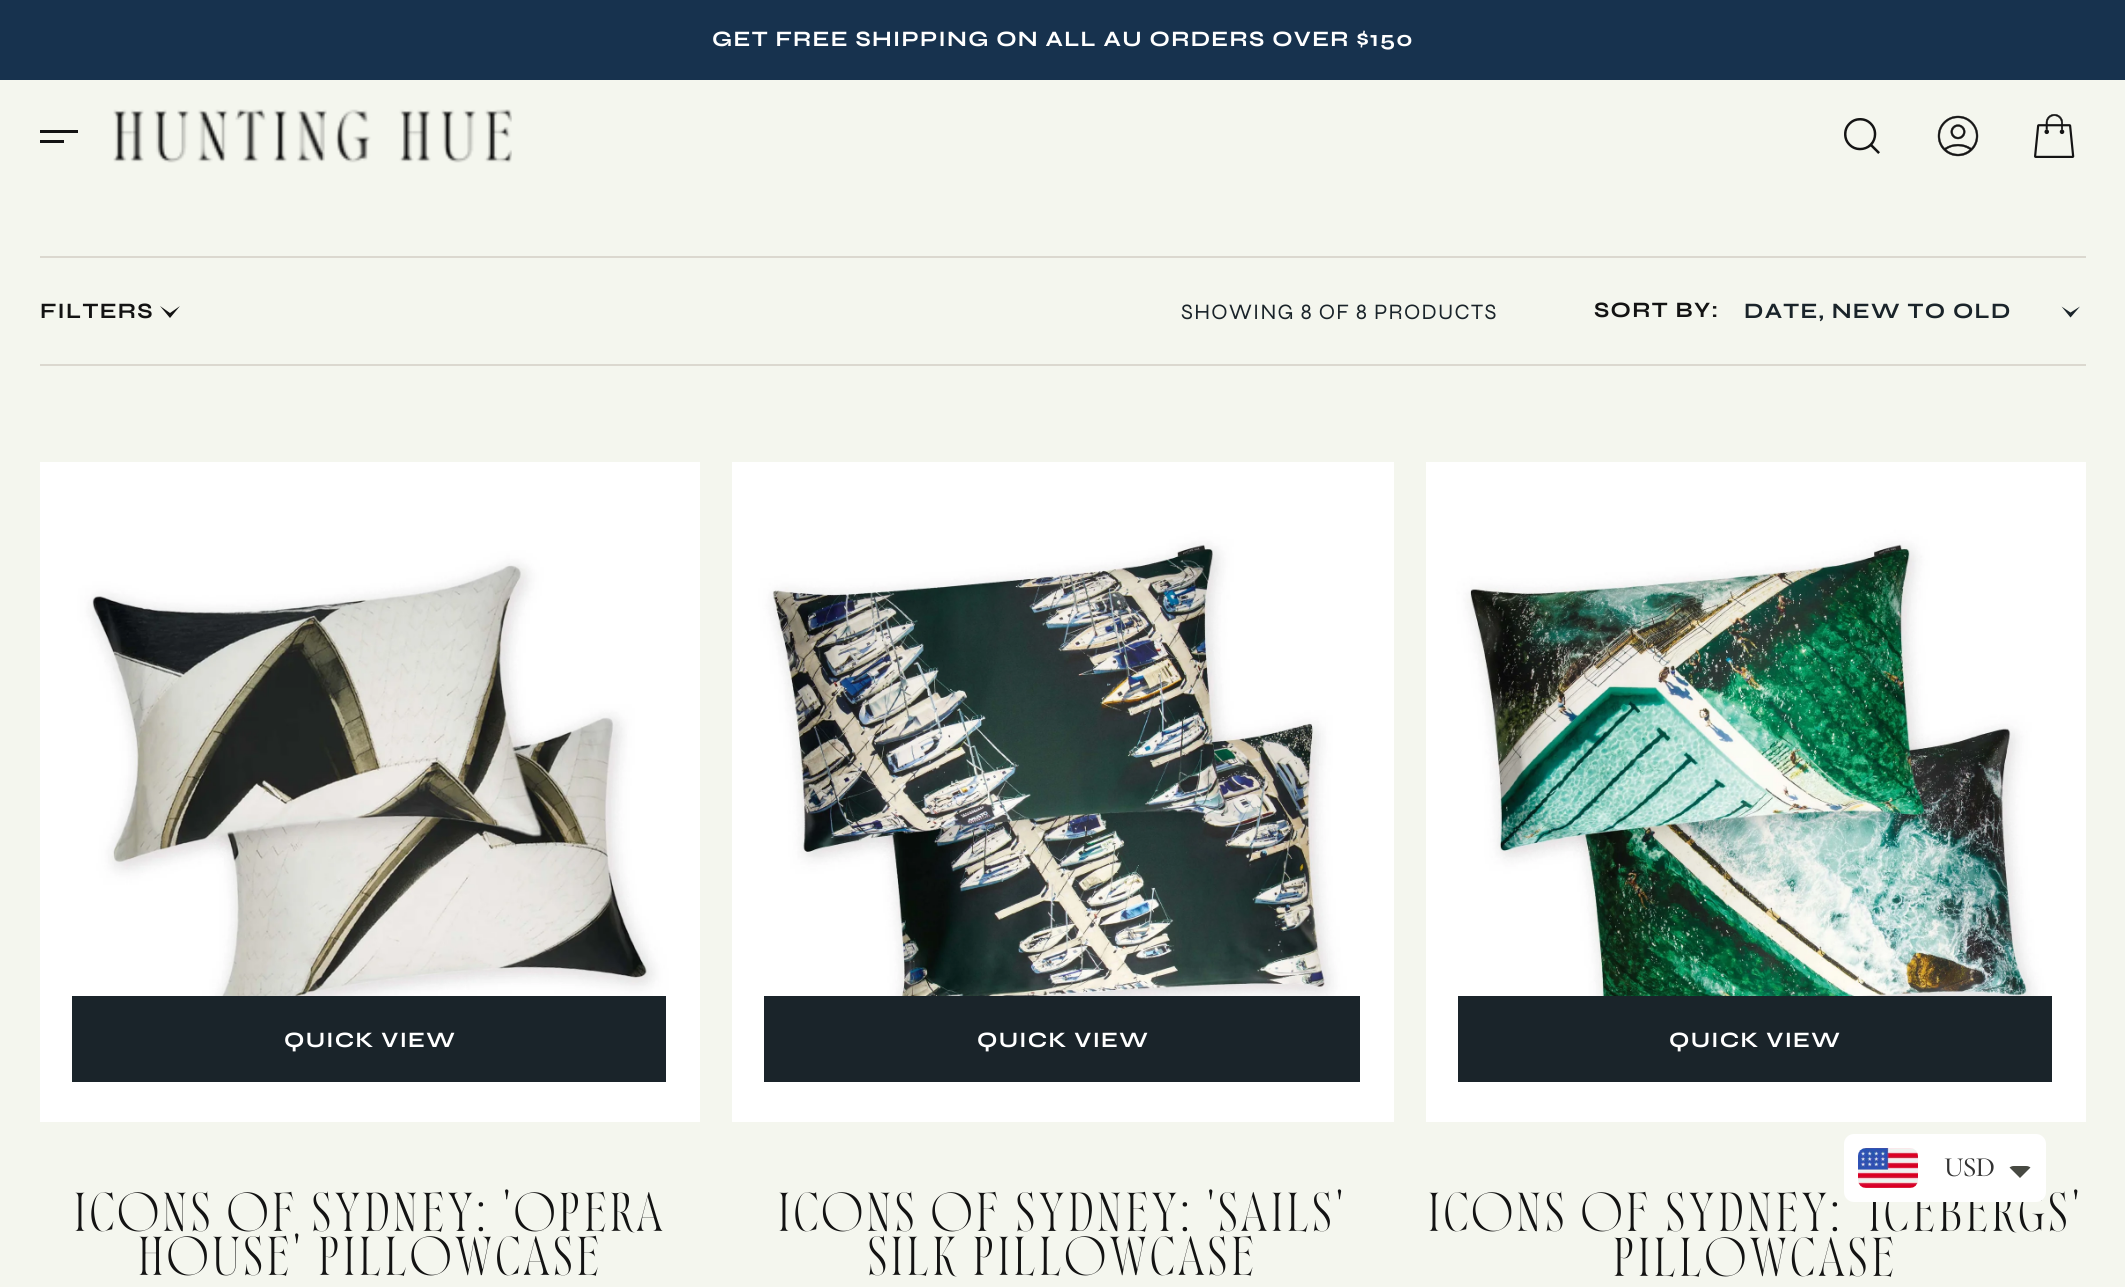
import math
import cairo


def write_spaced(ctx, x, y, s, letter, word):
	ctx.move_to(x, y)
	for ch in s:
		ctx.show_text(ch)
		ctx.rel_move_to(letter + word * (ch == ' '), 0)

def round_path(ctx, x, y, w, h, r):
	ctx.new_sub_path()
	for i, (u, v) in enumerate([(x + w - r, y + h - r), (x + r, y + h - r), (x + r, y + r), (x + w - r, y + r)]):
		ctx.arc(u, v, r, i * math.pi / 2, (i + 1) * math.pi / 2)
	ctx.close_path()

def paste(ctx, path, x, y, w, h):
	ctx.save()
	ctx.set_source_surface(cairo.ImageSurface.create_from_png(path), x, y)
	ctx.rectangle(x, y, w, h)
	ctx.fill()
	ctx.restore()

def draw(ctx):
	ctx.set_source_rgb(0.957, 0.961, 0.933)
	ctx.paint()
	ctx.set_source_rgb(0.09, 0.196, 0.306)
	ctx.rectangle(0, 0, 2125, 80)
	ctx.fill()
	ctx.select_font_face('Syne', cairo.FONT_SLANT_NORMAL, cairo.FONT_WEIGHT_BOLD)
	ctx.set_font_size(22)
	ctx.set_source_rgb(1, 1, 1)
	write_spaced(ctx, 712, 46, 'GET FREE SHIPPING ON ALL AU ORDERS OVER $150', 1.3, 0)
	ctx.set_source_rgb(0.078, 0.078, 0.078)
	ctx.set_fill_rule(cairo.FILL_RULE_EVEN_ODD)
	ctx.new_path()
	ctx.move_to(78, 130)
	ctx.line_to(40, 130)
	ctx.line_to(40, 133)
	ctx.line_to(78, 133)
	ctx.close_path()
	ctx.move_to(64, 140)
	ctx.line_to(40, 140)
	ctx.line_to(40, 143)
	ctx.line_to(64, 143)
	ctx.close_path()
	ctx.fill()
	paste(ctx, 'media/1.png', 113, 109, 399, 54)
	paste(ctx, 'media/2.png', 1844, 118, 36, 36)
	paste(ctx, 'media/3.png', 1937, 115, 42, 42)
	paste(ctx, 'media/4.png', 2034, 114, 41, 44)
	ctx.set_source_rgb(0.859, 0.847, 0.812)
	ctx.rectangle(40, 256, 2046, 2)
	ctx.fill()
	ctx.set_source_rgb(0.078, 0.078, 0.078)
	write_spaced(ctx, 40, 318, 'FILTERS', 1.3, 0)
	ctx.set_fill_rule(cairo.FILL_RULE_WINDING)
	ctx.new_path()
	ctx.move_to(170, 318)
	ctx.line_to(160, 306)
	ctx.line_to(170, 313)
	ctx.line_to(180, 306)
	ctx.close_path()
	ctx.fill()
	ctx.select_font_face('Syne')
	ctx.set_source_rgb(0.102, 0.141, 0.165)
	write_spaced(ctx, 1181, 319, 'SHOWING 8 OF 8 PRODUCTS', 1.3, 0)
	ctx.select_font_face('Syne', cairo.FONT_SLANT_NORMAL, cairo.FONT_WEIGHT_BOLD)
	ctx.set_source_rgb(0.078, 0.078, 0.078)
	write_spaced(ctx, 1594, 317, 'SORT BY:', 1.3, 0)
	ctx.set_source_rgb(0.102, 0.141, 0.165)
	write_spaced(ctx, 1744, 318, 'DATE, NEW TO OLD', 1.3, 0)
	ctx.new_path()
	ctx.move_to(2070.5, 317.5)
	ctx.line_to(2061.5, 306.5)
	ctx.line_to(2070.5, 312.5)
	ctx.line_to(2080, 306.5)
	ctx.close_path()
	ctx.fill()
	ctx.set_source_rgb(0.859, 0.847, 0.812)
	ctx.rectangle(40, 364, 2046, 2)
	ctx.fill()
	paste(ctx, 'media/5.png', 40, 462, 660, 660)
	ctx.set_source_rgb(0.102, 0.141, 0.165)
	ctx.rectangle(72, 996, 594, 86)
	ctx.fill()
	ctx.set_source_rgb(1, 1, 1)
	write_spaced(ctx, 284, 1047, 'QUICK VIEW', 1.3, 0)
	ctx.select_font_face('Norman')
	ctx.set_font_size(44.75)
	ctx.set_source_rgb(0.078, 0.078, 0.078)
	write_spaced(ctx, 74, 1231, 'ICONS OF SYDNEY: \'OPERA', 4, 0)
	write_spaced(ctx, 138, 1275, 'HOUSE\' PILLOWCASE', 4, 0)
	paste(ctx, 'media/6.png', 732, 462, 662, 660)
	ctx.set_source_rgb(0.102, 0.141, 0.165)
	ctx.rectangle(764, 996, 596, 86)
	ctx.fill()
	ctx.select_font_face('Syne', cairo.FONT_SLANT_NORMAL, cairo.FONT_WEIGHT_BOLD)
	ctx.set_font_size(22)
	ctx.set_source_rgb(1, 1, 1)
	write_spaced(ctx, 977, 1047, 'QUICK VIEW', 1.3, 0)
	ctx.select_font_face('Norman')
	ctx.set_font_size(44.75)
	ctx.set_source_rgb(0.078, 0.078, 0.078)
	write_spaced(ctx, 778, 1231, 'ICONS OF SYDNEY: \'SAILS\'', 4, 0)
	write_spaced(ctx, 868, 1275, 'SILK PILLOWCASE', 4, 0)
	paste(ctx, 'media/7.png', 1426, 462, 660, 660)
	ctx.set_source_rgb(0.102, 0.141, 0.165)
	ctx.rectangle(1458, 996, 594, 86)
	ctx.fill()
	ctx.select_font_face('Syne', cairo.FONT_SLANT_NORMAL, cairo.FONT_WEIGHT_BOLD)
	ctx.set_font_size(22)
	ctx.set_source_rgb(1, 1, 1)
	write_spaced(ctx, 1669, 1047, 'QUICK VIEW', 1.3, 0)
	ctx.select_font_face('Norman')
	ctx.set_font_size(44.75)
	ctx.set_source_rgb(0.078, 0.078, 0.078)
	write_spaced(ctx, 1428, 1231, 'ICONS OF SYDNEY: \'ICEBERGS\'', 4, 0)
	write_spaced(ctx, 1613, 1276, 'PILLOWCASE', 4, 0)
	ctx.set_source_rgb(1, 1, 1)
	round_path(ctx, 1844, 1134, 202, 68, 10)
	ctx.fill()
	paste(ctx, 'media/8.png', 1858, 1148, 60, 40)
	ctx.select_font_face('Cormorant Medium')
	ctx.set_font_size(28)
	ctx.set_source_rgb(0.2, 0.2, 0.2)
	write_spaced(ctx, 1944, 1176, 'USD', -1, 0)
	ctx.set_source_rgb(0.278, 0.286, 0.259)
	ctx.new_path()
	ctx.move_to(2014, 1166)
	ctx.curve_to(2012, 1166, 2011, 1166.5, 2009.5, 1167.5)
	ctx.line_to(2020, 1178)
	ctx.line_to(2030.5, 1167.5)
	ctx.curve_to(2029, 1166.5, 2028, 1166, 2026, 1166)
	ctx.close_path()
	ctx.fill()


surface = cairo.ImageSurface(cairo.FORMAT_RGB24, 2125, 1287)
ctx = cairo.Context(surface)
options = cairo.FontOptions()
options.set_hint_metrics(cairo.HINT_METRICS_OFF)
options.set_hint_style(cairo.HINT_STYLE_NONE)
ctx.set_font_options(options)
ctx.set_miter_limit(4)
draw(ctx)
surface.write_to_png('image.png')
